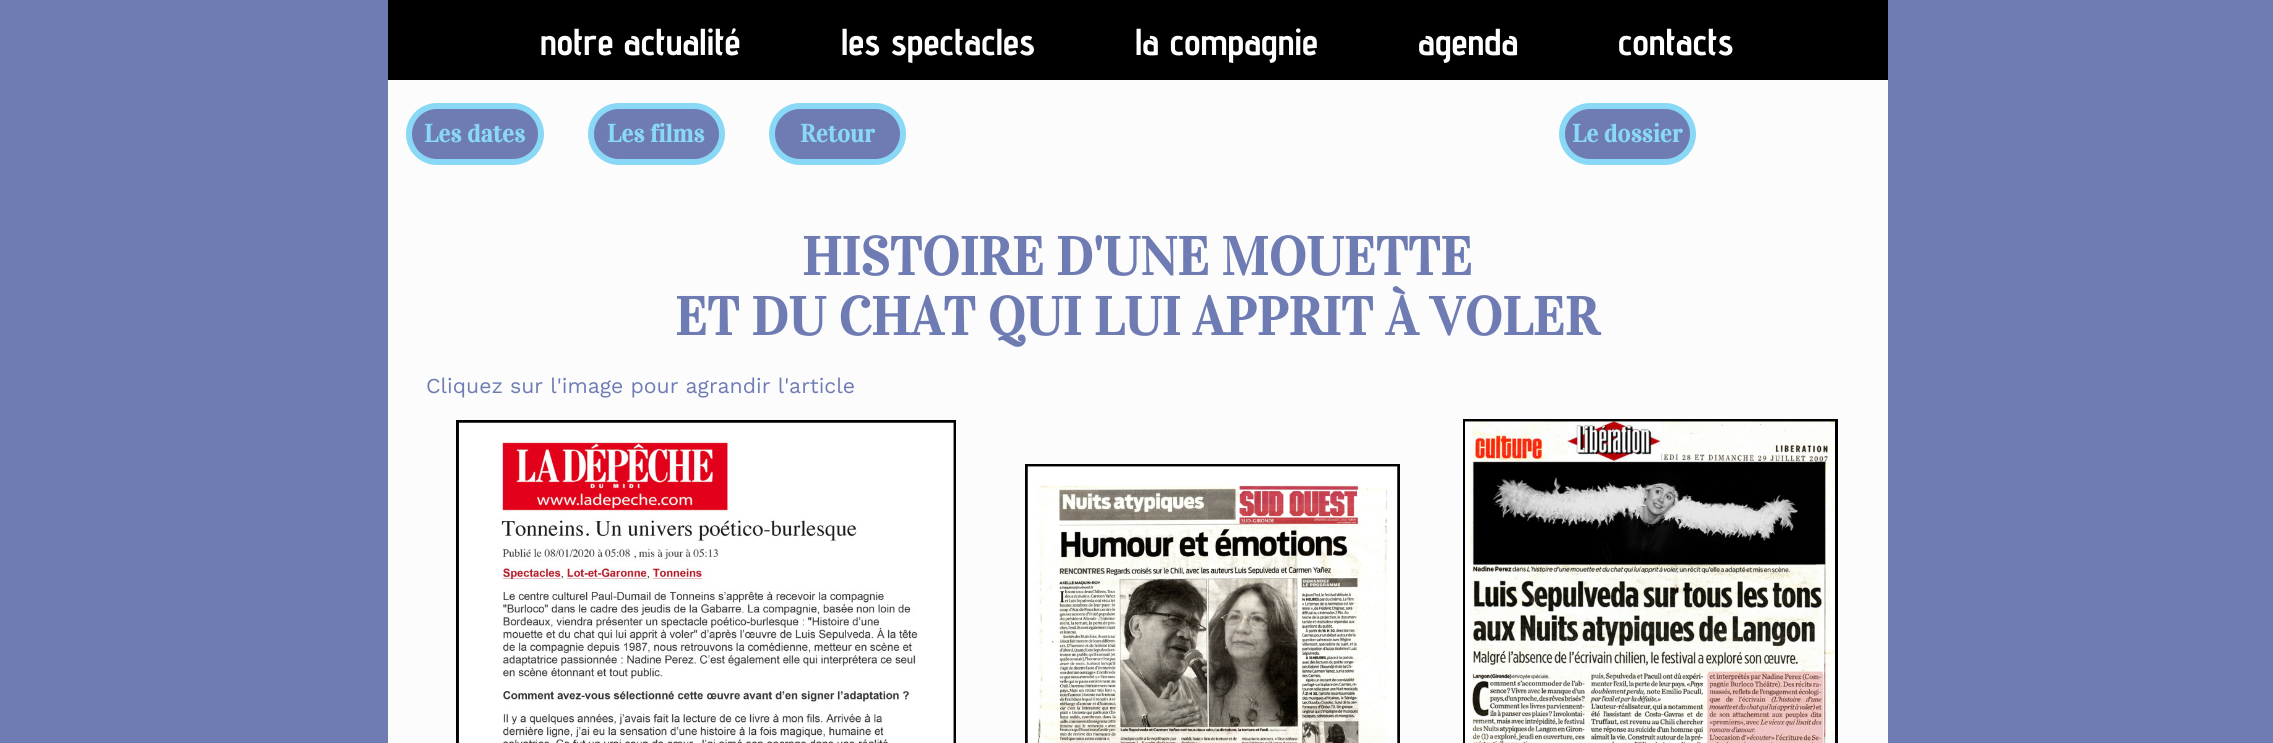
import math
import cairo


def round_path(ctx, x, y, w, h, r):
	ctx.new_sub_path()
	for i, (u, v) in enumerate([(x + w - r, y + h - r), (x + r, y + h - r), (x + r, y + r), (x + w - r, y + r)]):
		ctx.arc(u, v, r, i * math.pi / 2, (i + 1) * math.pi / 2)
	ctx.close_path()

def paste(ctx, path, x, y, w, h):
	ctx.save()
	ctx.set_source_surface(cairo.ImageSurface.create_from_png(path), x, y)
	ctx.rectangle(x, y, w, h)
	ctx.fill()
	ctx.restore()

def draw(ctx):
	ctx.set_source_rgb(0.435, 0.486, 0.702)
	ctx.paint()
	ctx.set_source_rgb(0, 0, 0)
	ctx.rectangle(388, 0, 1500, 80)
	ctx.fill()
	ctx.select_font_face('Advent Pro', cairo.FONT_SLANT_NORMAL, cairo.FONT_WEIGHT_BOLD)
	ctx.set_font_size(37.5)
	ctx.set_source_rgb(1, 1, 1)
	for x, y, s in [
		(540, 55, 'notre actualité'),
		(841, 55, 'les spectacles'),
		(1135, 55, 'la compagnie'),
		(1418, 55, 'agenda'),
		(1618, 55, 'contacts'),
	]:
		ctx.move_to(x, y)
		ctx.show_text(s)
	ctx.set_source_rgb(0.988, 0.988, 0.988)
	ctx.rectangle(388, 80, 1500, 663)
	ctx.fill()
	ctx.set_source_rgb(0.435, 0.486, 0.702)
	round_path(ctx, 409, 106, 132, 56, 28)
	ctx.fill_preserve()
	ctx.set_source_rgb(0.537, 0.847, 0.961)
	ctx.set_line_width(6)
	ctx.stroke()
	ctx.select_font_face('Vidaloka', cairo.FONT_SLANT_NORMAL, cairo.FONT_WEIGHT_BOLD)
	ctx.set_font_size(25)
	ctx.move_to(424, 142)
	ctx.show_text('Les dates')
	ctx.set_source_rgb(0.435, 0.486, 0.702)
	round_path(ctx, 591, 106, 131, 56, 28)
	ctx.fill_preserve()
	ctx.set_source_rgb(0.537, 0.847, 0.961)
	ctx.stroke()
	ctx.move_to(607, 142)
	ctx.show_text('Les films')
	ctx.set_source_rgb(0.435, 0.486, 0.702)
	round_path(ctx, 772, 106, 131, 56, 28)
	ctx.fill_preserve()
	ctx.set_source_rgb(0.537, 0.847, 0.961)
	ctx.stroke()
	ctx.move_to(800, 142)
	ctx.show_text('Retour')
	ctx.set_source_rgb(0.435, 0.486, 0.702)
	round_path(ctx, 1562, 106, 131, 56, 28)
	ctx.fill_preserve()
	ctx.set_source_rgb(0.537, 0.847, 0.961)
	ctx.stroke()
	ctx.move_to(1572, 142)
	ctx.show_text('Le dossier')
	ctx.set_font_size(53.75)
	ctx.set_source_rgb(0.435, 0.486, 0.702)
	ctx.move_to(802, 275)
	ctx.show_text('HISTOIRE D\'UNE MOUETTE')
	ctx.move_to(675, 335)
	ctx.show_text('ET DU CHAT QUI LUI APPRIT À VOLER')
	ctx.select_font_face('Work Sans')
	ctx.set_font_size(21.25)
	ctx.move_to(426, 393)
	ctx.show_text('Cliquez sur l\'image pour agrandir l\'article')
	ctx.rectangle(457.5, 421.5, 497, 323)
	ctx.set_source_rgb(0, 0, 0)
	ctx.set_line_width(3)
	ctx.stroke()
	paste(ctx, 'media/1.png', 458, 422, 496, 321)
	ctx.rectangle(1026.5, 465.5, 372, 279)
	ctx.stroke()
	paste(ctx, 'media/2.png', 1027, 466, 371, 277)
	ctx.rectangle(1464.5, 420.5, 372, 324)
	ctx.stroke()
	paste(ctx, 'media/3.png', 1465, 421, 370, 322)


surface = cairo.ImageSurface(cairo.FORMAT_RGB24, 2273, 743)
ctx = cairo.Context(surface)
options = cairo.FontOptions()
options.set_hint_metrics(cairo.HINT_METRICS_OFF)
options.set_hint_style(cairo.HINT_STYLE_NONE)
ctx.set_font_options(options)
ctx.set_miter_limit(4)
draw(ctx)
surface.write_to_png('image.png')
